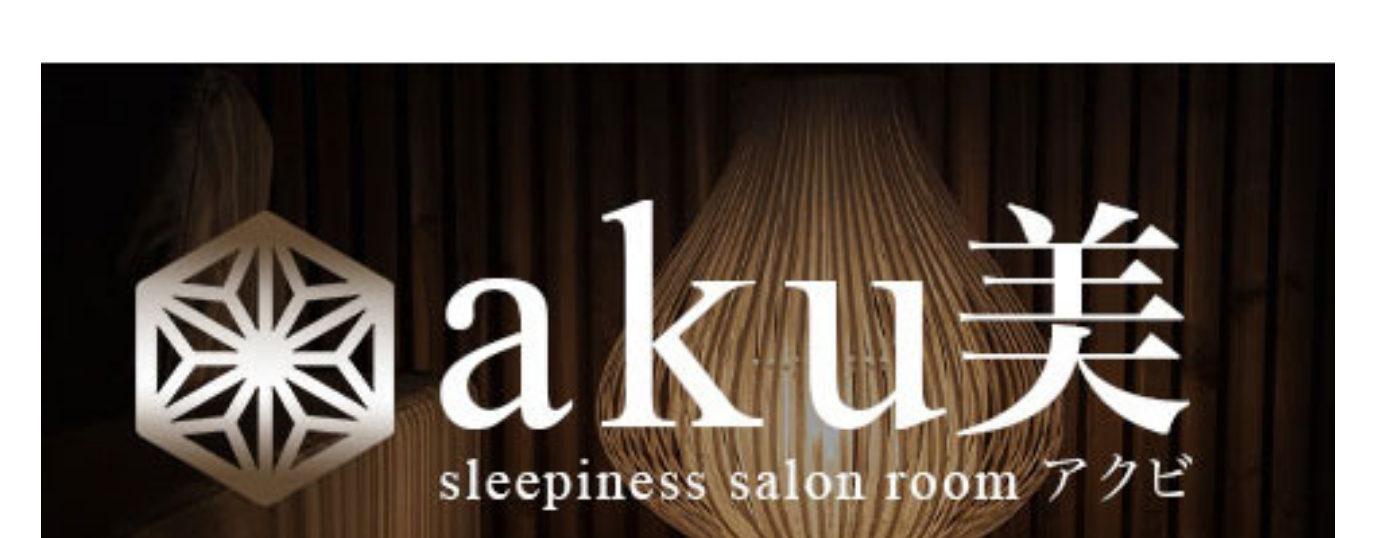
import math
import cairo


def paste(ctx, path, x, y, w, h):
	ctx.save()
	ctx.set_source_surface(cairo.ImageSurface.create_from_png(path), x, y)
	ctx.rectangle(x, y, w, h)
	ctx.fill()
	ctx.restore()

def draw(ctx):
	ctx.set_source_rgb(1, 1, 1)
	ctx.paint()
	paste(ctx, 'media/1.png', 41, 60, 1294, 478)


surface = cairo.ImageSurface(cairo.FORMAT_RGB24, 1376, 538)
ctx = cairo.Context(surface)
options = cairo.FontOptions()
options.set_hint_metrics(cairo.HINT_METRICS_OFF)
options.set_hint_style(cairo.HINT_STYLE_NONE)
ctx.set_font_options(options)
ctx.set_miter_limit(4)
draw(ctx)
surface.write_to_png('image.png')
